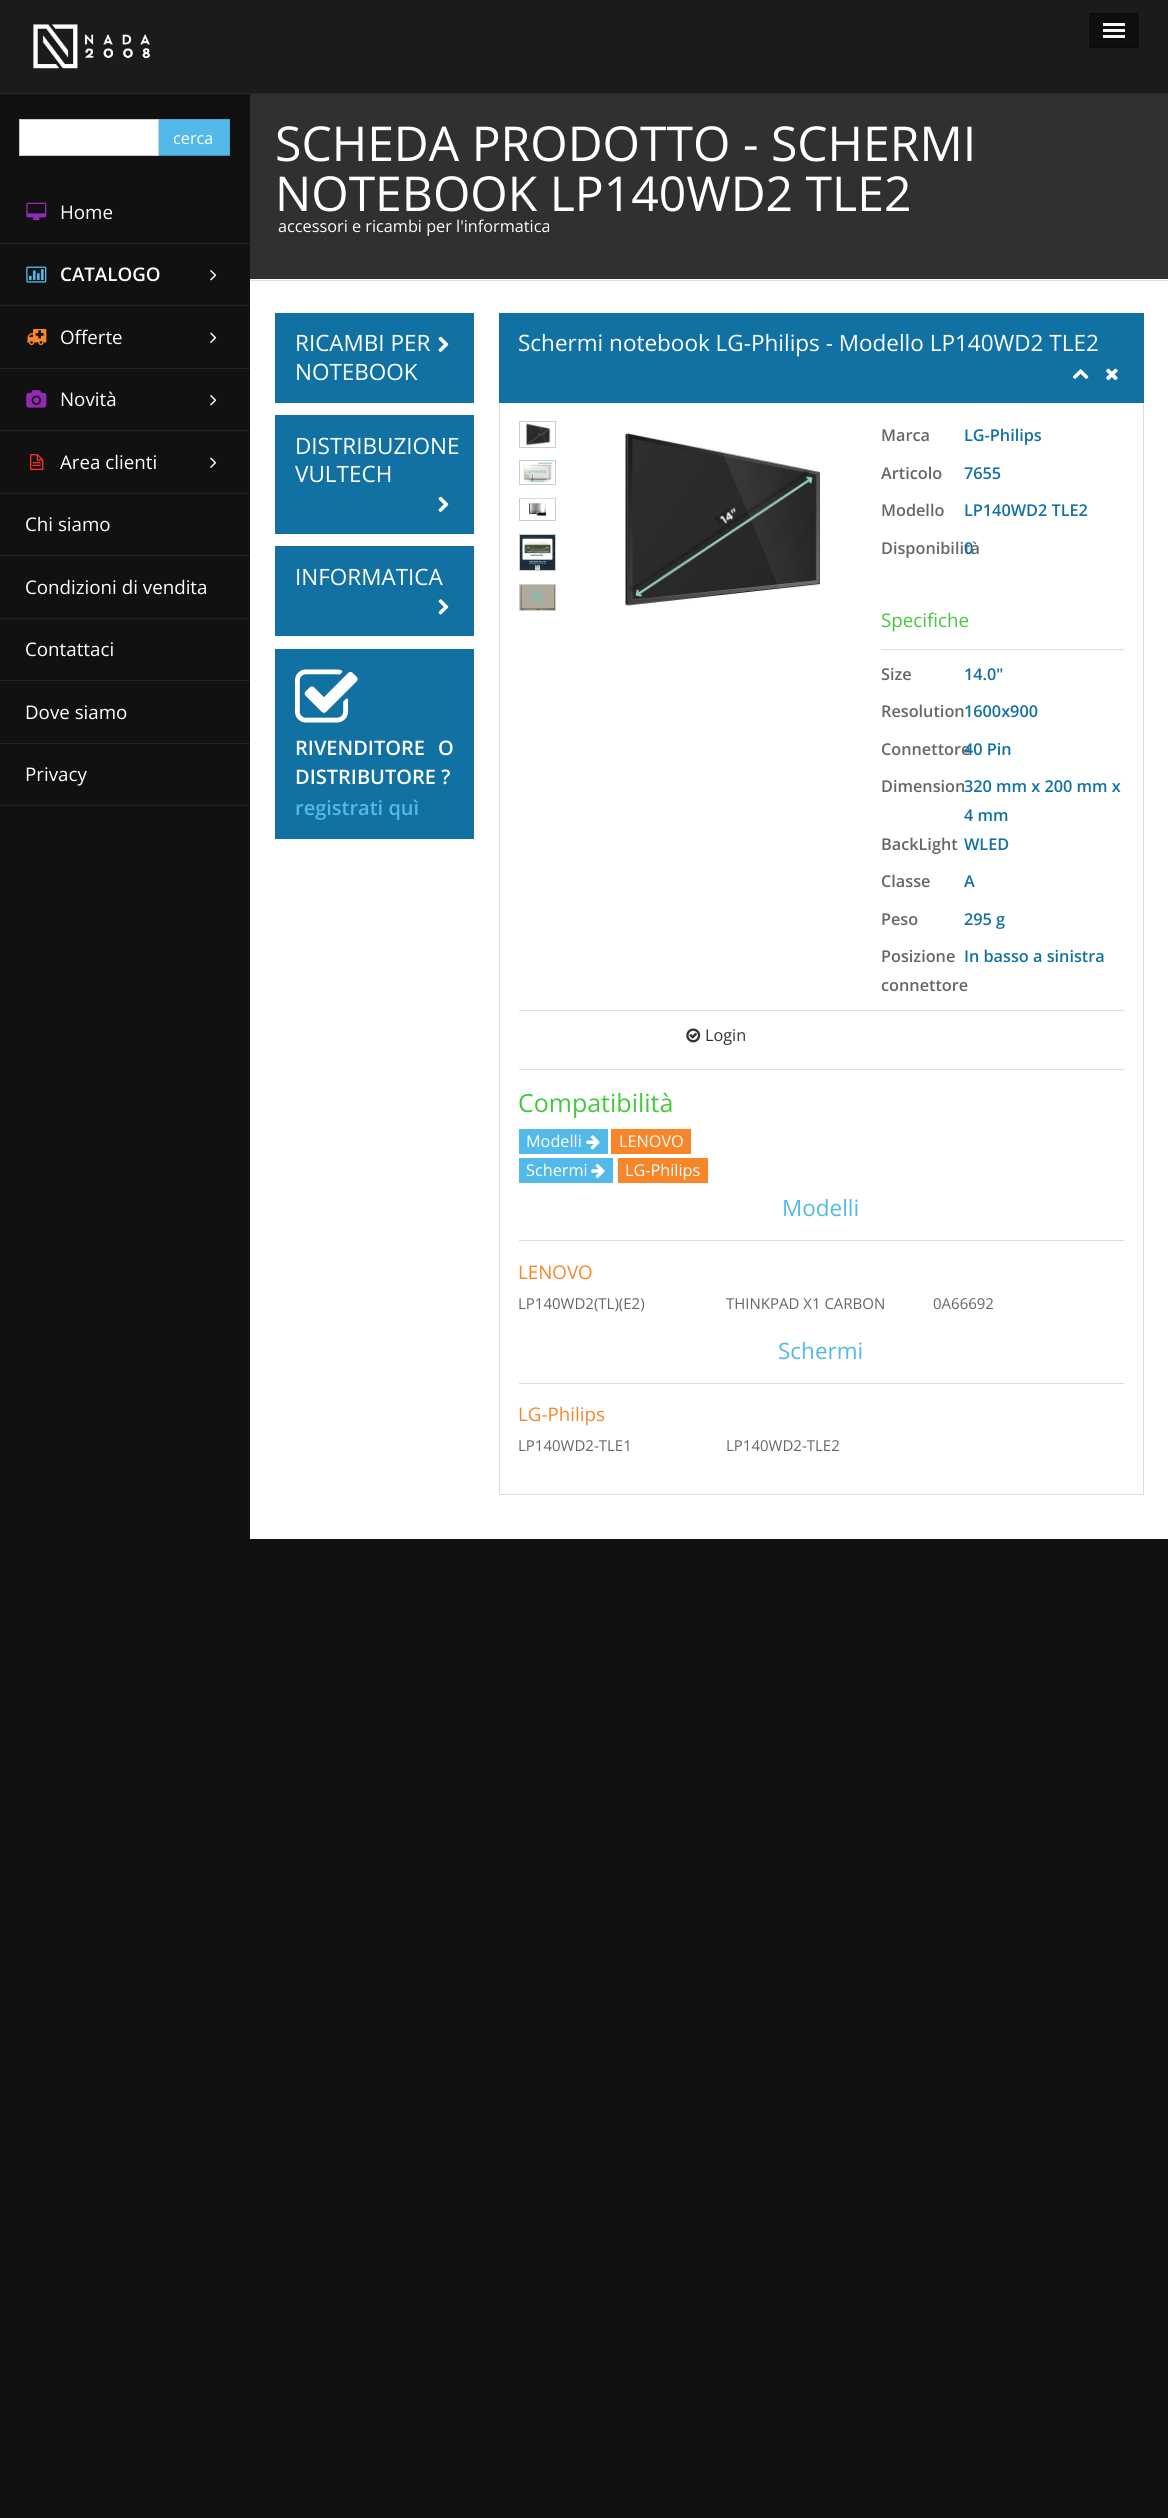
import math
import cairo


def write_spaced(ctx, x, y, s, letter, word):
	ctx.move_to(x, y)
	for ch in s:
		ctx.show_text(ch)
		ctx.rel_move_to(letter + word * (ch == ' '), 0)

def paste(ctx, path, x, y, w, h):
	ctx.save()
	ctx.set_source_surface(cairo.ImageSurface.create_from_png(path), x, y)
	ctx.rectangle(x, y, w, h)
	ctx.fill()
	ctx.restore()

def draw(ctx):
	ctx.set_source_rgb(0.067, 0.067, 0.067)
	ctx.paint()
	ctx.set_source_rgb(0.106, 0.106, 0.106)
	ctx.rectangle(0, 0, 1168, 93)
	ctx.fill()
	ctx.set_source_rgb(0.145, 0.145, 0.145)
	ctx.rectangle(0, 93, 1168, 1)
	ctx.fill()
	paste(ctx, 'media/1.png', 33, 24, 118, 45)
	ctx.set_source_rgb(0.055, 0.055, 0.055)
	ctx.rectangle(1089, 13, 50, 35)
	ctx.fill()
	ctx.set_source_rgba(0, 0, 0, 0.1)
	ctx.new_path()
	ctx.move_to(1089, 12)
	ctx.line_to(1139, 12)
	ctx.line_to(1138, 14)
	ctx.line_to(1090, 14)
	ctx.close_path()
	ctx.fill()
	ctx.set_source_rgb(0.043, 0.043, 0.043)
	ctx.new_path()
	ctx.move_to(1139, 48)
	ctx.line_to(1089, 48)
	ctx.line_to(1090, 46)
	ctx.line_to(1138, 46)
	ctx.close_path()
	ctx.fill()
	ctx.set_source_rgb(0.961, 0.961, 0.961)
	ctx.rectangle(1103, 23, 22, 3)
	ctx.rectangle(1103, 29, 22, 3)
	ctx.rectangle(1103, 35, 22, 3)
	ctx.fill()
	ctx.set_source_rgb(0.322, 0.725, 0.914)
	ctx.rectangle(159, 119, 71, 37)
	ctx.fill()
	ctx.set_source_rgb(0.29, 0.655, 0.824)
	ctx.new_path()
	ctx.move_to(158, 119)
	ctx.line_to(230, 119)
	ctx.line_to(229, 120)
	ctx.line_to(159, 120)
	ctx.close_path()
	ctx.fill()
	ctx.set_source_rgba(0, 0, 0, 0.1)
	ctx.new_path()
	ctx.move_to(230, 119)
	ctx.line_to(230, 156)
	ctx.line_to(229, 155)
	ctx.line_to(229, 120)
	ctx.close_path()
	ctx.fill()
	ctx.set_source_rgba(0, 0, 0, 0.25)
	ctx.new_path()
	ctx.move_to(230, 156)
	ctx.line_to(158, 156)
	ctx.line_to(159, 155)
	ctx.line_to(229, 155)
	ctx.close_path()
	ctx.fill()
	ctx.set_source_rgb(1, 1, 1)
	ctx.rectangle(19.5, 119.5, 139, 36)
	ctx.fill_preserve()
	ctx.set_source_rgb(0.8, 0.8, 0.8)
	ctx.set_line_width(1)
	ctx.stroke()
	ctx.select_font_face('Open Sans')
	ctx.set_font_size(16.25)
	ctx.set_source_rgb(1, 1, 1)
	ctx.move_to(173, 144)
	ctx.show_text('cerca')
	ctx.set_source_rgb(0.133, 0.133, 0.133)
	ctx.rectangle(0, 243, 250, 1)
	ctx.fill()
	paste(ctx, 'media/2.png', 26, 202, 21, 19)
	ctx.set_font_size(18.75)
	ctx.set_source_rgb(1, 1, 1)
	ctx.move_to(60, 219)
	ctx.show_text('Home')
	ctx.set_source_rgb(0.133, 0.133, 0.133)
	ctx.rectangle(0, 305, 250, 1)
	ctx.fill()
	paste(ctx, 'media/3.png', 26, 266, 21, 17)
	ctx.select_font_face('Open Sans SemiBold')
	ctx.set_source_rgb(1, 1, 1)
	ctx.move_to(60, 281)
	ctx.show_text('CATALOGO')
	paste(ctx, 'media/4.png', 210, 270, 7, 11)
	ctx.set_source_rgb(0.133, 0.133, 0.133)
	ctx.rectangle(0, 368, 250, 1)
	ctx.fill()
	paste(ctx, 'media/5.png', 27, 329, 20, 17)
	ctx.select_font_face('Open Sans')
	ctx.set_source_rgb(1, 1, 1)
	ctx.move_to(60, 344)
	ctx.show_text('Offerte')
	paste(ctx, 'media/6.png', 210, 332, 7, 11)
	ctx.set_source_rgb(0.133, 0.133, 0.133)
	ctx.rectangle(0, 430, 250, 1)
	ctx.fill()
	paste(ctx, 'media/7.png', 26, 390, 21, 18)
	ctx.set_source_rgb(1, 1, 1)
	ctx.move_to(60, 406)
	ctx.show_text('Novità')
	paste(ctx, 'media/4.png', 210, 395, 7, 11)
	ctx.set_source_rgb(0.133, 0.133, 0.133)
	ctx.rectangle(0, 493, 250, 1)
	ctx.fill()
	paste(ctx, 'media/8.png', 30, 454, 14, 17)
	ctx.set_source_rgb(1, 1, 1)
	ctx.move_to(60, 469)
	ctx.show_text('Area clienti')
	paste(ctx, 'media/6.png', 210, 457, 7, 11)
	ctx.set_source_rgb(0.133, 0.133, 0.133)
	ctx.rectangle(0, 555, 250, 1)
	ctx.fill()
	ctx.set_source_rgb(1, 1, 1)
	ctx.move_to(25, 531)
	ctx.show_text('Chi siamo')
	ctx.set_source_rgb(0.133, 0.133, 0.133)
	ctx.rectangle(0, 618, 250, 1)
	ctx.fill()
	ctx.set_source_rgb(1, 1, 1)
	ctx.move_to(25, 594)
	ctx.show_text('Condizioni di vendita')
	ctx.set_source_rgb(0.133, 0.133, 0.133)
	ctx.rectangle(0, 680, 250, 1)
	ctx.fill()
	ctx.set_source_rgb(1, 1, 1)
	ctx.move_to(25, 656)
	ctx.show_text('Contattaci')
	ctx.set_source_rgb(0.133, 0.133, 0.133)
	ctx.rectangle(0, 743, 250, 1)
	ctx.fill()
	ctx.set_source_rgb(1, 1, 1)
	ctx.move_to(25, 719)
	ctx.show_text('Dove siamo')
	ctx.set_source_rgb(0.133, 0.133, 0.133)
	ctx.rectangle(0, 805, 250, 1)
	ctx.fill()
	ctx.set_source_rgb(1, 1, 1)
	ctx.move_to(25, 781)
	ctx.show_text('Privacy')
	ctx.rectangle(250, 281, 918, 1258)
	ctx.fill()
	ctx.set_source_rgb(0.188, 0.188, 0.188)
	ctx.rectangle(250, 94, 918, 185)
	ctx.fill()
	ctx.set_source_rgb(1, 1, 1)
	ctx.rectangle(250, 279, 918, 1)
	ctx.fill()
	ctx.set_font_size(48.1)
	ctx.move_to(275, 161)
	ctx.show_text('SCHEDA PRODOTTO - SCHERMI')
	ctx.move_to(275, 211)
	ctx.show_text('NOTEBOOK LP140WD2 TLE2')
	ctx.set_font_size(16.25)
	ctx.move_to(278, 232)
	ctx.show_text('accessori e ricambi per l\'informatica')
	ctx.set_source_rgb(0.867, 0.867, 0.867)
	ctx.rectangle(250, 280, 918, 1)
	ctx.fill()
	ctx.set_source_rgb(0.067, 0.443, 0.639)
	ctx.rectangle(275, 313, 199, 90)
	ctx.fill()
	ctx.set_font_size(22.5)
	ctx.set_source_rgb(1, 1, 1)
	ctx.move_to(295, 351)
	ctx.show_text('RICAMBI PER')
	ctx.move_to(295, 380)
	ctx.show_text('NOTEBOOK')
	paste(ctx, 'media/9.png', 438, 336, 11, 16)
	ctx.set_source_rgb(0.067, 0.443, 0.639)
	ctx.rectangle(275, 415, 199, 119)
	ctx.fill()
	ctx.set_source_rgb(1, 1, 1)
	ctx.move_to(295, 454)
	ctx.show_text('DISTRIBUZIONE')
	ctx.move_to(295, 482)
	ctx.show_text('VULTECH')
	paste(ctx, 'media/9.png', 438, 496, 11, 16)
	ctx.set_source_rgb(0.067, 0.443, 0.639)
	ctx.rectangle(275, 546, 199, 90)
	ctx.fill()
	ctx.set_source_rgb(1, 1, 1)
	ctx.move_to(295, 585)
	ctx.show_text('INFORMATICA')
	paste(ctx, 'media/10.png', 438, 599, 11, 16)
	ctx.set_source_rgb(0.067, 0.443, 0.639)
	ctx.rectangle(275, 649, 199, 190)
	ctx.fill()
	paste(ctx, 'media/11.png', 295, 669, 63, 54)
	ctx.select_font_face('Open Sans SemiBold')
	ctx.set_font_size(20)
	ctx.set_source_rgb(1, 1, 1)
	write_spaced(ctx, 295, 755, 'RIVENDITORE O', 0, 8)
	ctx.move_to(295, 784)
	ctx.show_text('DISTRIBUTORE ?')
	ctx.set_source_rgb(0.322, 0.725, 0.914)
	ctx.move_to(295, 815)
	ctx.show_text('registrati quì')
	ctx.set_source_rgb(0.067, 0.443, 0.639)
	ctx.rectangle(499, 313, 645, 90)
	ctx.fill()
	ctx.select_font_face('Open Sans')
	ctx.set_font_size(22.5)
	ctx.set_source_rgb(1, 1, 1)
	ctx.move_to(518, 351)
	ctx.show_text('Schermi notebook LG-Philips - Modello LP140WD2 TLE2')
	paste(ctx, 'media/12.png', 1073, 369, 16, 10)
	paste(ctx, 'media/13.png', 1106, 368, 12, 13)
	ctx.set_source_rgb(0.867, 0.867, 0.867)
	ctx.rectangle(1143, 403, 1, 1092)
	ctx.rectangle(499, 1494, 645, 1)
	ctx.rectangle(499, 403, 1, 1092)
	ctx.fill()
	ctx.rectangle(519.5, 421.5, 36, 26)
	ctx.set_source_rgb(0.8, 0.8, 0.8)
	ctx.stroke()
	paste(ctx, 'media/14.png', 526, 423, 25, 23)
	ctx.rectangle(519.5, 460.5, 36, 24)
	ctx.stroke()
	paste(ctx, 'media/15.png', 523, 462, 30, 21)
	ctx.rectangle(519.5, 498.5, 36, 22)
	ctx.stroke()
	paste(ctx, 'media/16.png', 520, 498, 35, 18)
	ctx.rectangle(519.5, 534.5, 36, 36)
	ctx.stroke()
	paste(ctx, 'media/17.png', 520, 535, 35, 35)
	ctx.rectangle(519.5, 584.5, 36, 26)
	ctx.stroke()
	paste(ctx, 'media/18.png', 520, 585, 35, 25)
	paste(ctx, 'media/19.png', 625, 433, 197, 173)
	ctx.select_font_face('Open Sans SemiBold')
	ctx.set_font_size(16.25)
	ctx.set_source_rgb(0.4, 0.4, 0.4)
	ctx.move_to(881, 441)
	ctx.show_text('Marca')
	ctx.set_source_rgb(0.067, 0.443, 0.639)
	ctx.move_to(964, 441)
	ctx.show_text('LG-Philips')
	ctx.set_source_rgb(0.4, 0.4, 0.4)
	ctx.move_to(881, 479)
	ctx.show_text('Articolo')
	ctx.set_source_rgb(0.067, 0.443, 0.639)
	ctx.move_to(964, 479)
	ctx.show_text('7655')
	ctx.set_source_rgb(0.4, 0.4, 0.4)
	ctx.move_to(881, 516)
	ctx.show_text('Modello')
	ctx.set_source_rgb(0.067, 0.443, 0.639)
	ctx.move_to(964, 516)
	ctx.show_text('LP140WD2 TLE2')
	ctx.set_source_rgb(0.4, 0.4, 0.4)
	ctx.move_to(881, 554)
	ctx.show_text('Disponibilità')
	ctx.set_source_rgb(0.067, 0.443, 0.639)
	ctx.move_to(964, 554)
	ctx.show_text('0')
	ctx.select_font_face('Open Sans')
	ctx.set_font_size(18.75)
	ctx.set_source_rgb(0.263, 0.784, 0.235)
	ctx.move_to(881, 627)
	ctx.show_text('Specifiche')
	ctx.set_source_rgb(0.867, 0.867, 0.867)
	ctx.rectangle(881, 649, 243, 1)
	ctx.fill()
	ctx.select_font_face('Open Sans SemiBold')
	ctx.set_font_size(16.25)
	ctx.set_source_rgb(0.4, 0.4, 0.4)
	ctx.move_to(881, 680)
	ctx.show_text('Size')
	ctx.set_source_rgb(0.067, 0.443, 0.639)
	ctx.move_to(964, 680)
	ctx.show_text('14.0"')
	ctx.set_source_rgb(0.4, 0.4, 0.4)
	ctx.move_to(881, 717)
	ctx.show_text('Resolution')
	ctx.set_source_rgb(0.067, 0.443, 0.639)
	ctx.move_to(964, 717)
	ctx.show_text('1600x900')
	ctx.set_source_rgb(0.4, 0.4, 0.4)
	ctx.move_to(881, 755)
	ctx.show_text('Connettore')
	ctx.set_source_rgb(0.067, 0.443, 0.639)
	ctx.move_to(964, 755)
	ctx.show_text('40 Pin')
	ctx.set_source_rgb(0.4, 0.4, 0.4)
	ctx.move_to(881, 792)
	ctx.show_text('Dimension')
	ctx.set_source_rgb(0.067, 0.443, 0.639)
	ctx.move_to(964, 792)
	ctx.show_text('320 mm x 200 mm x')
	ctx.move_to(964, 821)
	ctx.show_text('4 mm')
	ctx.set_source_rgb(0.4, 0.4, 0.4)
	ctx.move_to(881, 850)
	ctx.show_text('BackLight')
	ctx.set_source_rgb(0.067, 0.443, 0.639)
	ctx.move_to(964, 850)
	ctx.show_text('WLED')
	ctx.set_source_rgb(0.4, 0.4, 0.4)
	ctx.move_to(881, 887)
	ctx.show_text('Classe')
	ctx.set_source_rgb(0.067, 0.443, 0.639)
	ctx.move_to(964, 887)
	ctx.show_text('A')
	ctx.set_source_rgb(0.4, 0.4, 0.4)
	ctx.move_to(881, 925)
	ctx.show_text('Peso')
	ctx.set_source_rgb(0.067, 0.443, 0.639)
	ctx.move_to(964, 925)
	ctx.show_text('295 g')
	ctx.set_source_rgb(0.4, 0.4, 0.4)
	ctx.move_to(881, 962)
	ctx.show_text('Posizione')
	ctx.move_to(881, 991)
	ctx.show_text('connettore')
	ctx.set_source_rgb(0.067, 0.443, 0.639)
	ctx.move_to(964, 962)
	ctx.show_text('In basso a sinistra')
	ctx.set_source_rgb(0.867, 0.867, 0.867)
	ctx.rectangle(519, 1010, 605, 1)
	ctx.fill()
	paste(ctx, 'media/20.png', 686, 1028, 15, 15)
	ctx.select_font_face('Open Sans')
	ctx.set_source_rgb(0.2, 0.2, 0.2)
	ctx.move_to(705, 1041)
	ctx.show_text('Login')
	ctx.set_source_rgb(0.867, 0.867, 0.867)
	ctx.rectangle(519, 1069, 605, 1)
	ctx.fill()
	ctx.set_font_size(25)
	ctx.set_source_rgb(0.263, 0.784, 0.235)
	ctx.move_to(518, 1112)
	ctx.show_text('Compatibilità')
	ctx.set_source_rgb(0.322, 0.725, 0.914)
	ctx.rectangle(519, 1129, 89, 25)
	ctx.fill()
	ctx.set_font_size(16.25)
	ctx.set_source_rgb(1, 1, 1)
	ctx.move_to(526, 1147)
	ctx.show_text('Modelli')
	paste(ctx, 'media/21.png', 586, 1135, 14, 15)
	ctx.set_source_rgb(0.973, 0.522, 0.161)
	ctx.rectangle(611, 1129, 80, 25)
	ctx.fill()
	ctx.set_source_rgb(1, 1, 1)
	ctx.move_to(619, 1147)
	ctx.show_text('LENOVO')
	ctx.set_source_rgb(0.322, 0.725, 0.914)
	ctx.rectangle(519, 1158, 94, 25)
	ctx.fill()
	ctx.set_source_rgb(1, 1, 1)
	ctx.move_to(526, 1176)
	ctx.show_text('Schermi')
	paste(ctx, 'media/22.png', 591, 1164, 14, 15)
	ctx.set_source_rgb(0.973, 0.522, 0.161)
	ctx.rectangle(618, 1158, 90, 25)
	ctx.fill()
	ctx.set_source_rgb(1, 1, 1)
	ctx.move_to(625, 1176)
	ctx.show_text('LG-Philips')
	ctx.set_font_size(22.5)
	ctx.set_source_rgb(0.322, 0.725, 0.914)
	ctx.move_to(782, 1216)
	ctx.show_text('Modelli')
	ctx.set_source_rgb(0.867, 0.867, 0.867)
	ctx.rectangle(519, 1240, 605, 1)
	ctx.fill()
	ctx.set_font_size(18.75)
	ctx.set_source_rgb(0.973, 0.522, 0.161)
	ctx.move_to(518, 1279)
	ctx.show_text('LENOVO')
	ctx.set_font_size(15)
	ctx.set_source_rgb(0.4, 0.4, 0.4)
	for x, y, s in [
		(518, 1309, 'LP140WD2(TL)(E2)'),
		(726, 1309, 'THINKPAD X1 CARBON'),
		(933, 1309, '0A66692'),
	]:
		ctx.move_to(x, y)
		ctx.show_text(s)
	ctx.set_font_size(22.5)
	ctx.set_source_rgb(0.322, 0.725, 0.914)
	ctx.move_to(778, 1359)
	ctx.show_text('Schermi')
	ctx.set_source_rgb(0.867, 0.867, 0.867)
	ctx.rectangle(519, 1383, 605, 1)
	ctx.fill()
	ctx.set_font_size(18.75)
	ctx.set_source_rgb(0.973, 0.522, 0.161)
	ctx.move_to(518, 1421)
	ctx.show_text('LG-Philips')
	ctx.set_font_size(15)
	ctx.set_source_rgb(0.4, 0.4, 0.4)
	ctx.move_to(518, 1451)
	ctx.show_text('LP140WD2-TLE1')
	ctx.move_to(726, 1451)
	ctx.show_text('LP140WD2-TLE2')


surface = cairo.ImageSurface(cairo.FORMAT_RGB24, 1168, 2518)
ctx = cairo.Context(surface)
options = cairo.FontOptions()
options.set_hint_metrics(cairo.HINT_METRICS_OFF)
options.set_hint_style(cairo.HINT_STYLE_NONE)
ctx.set_font_options(options)
ctx.set_miter_limit(4)
draw(ctx)
surface.write_to_png('image.png')
